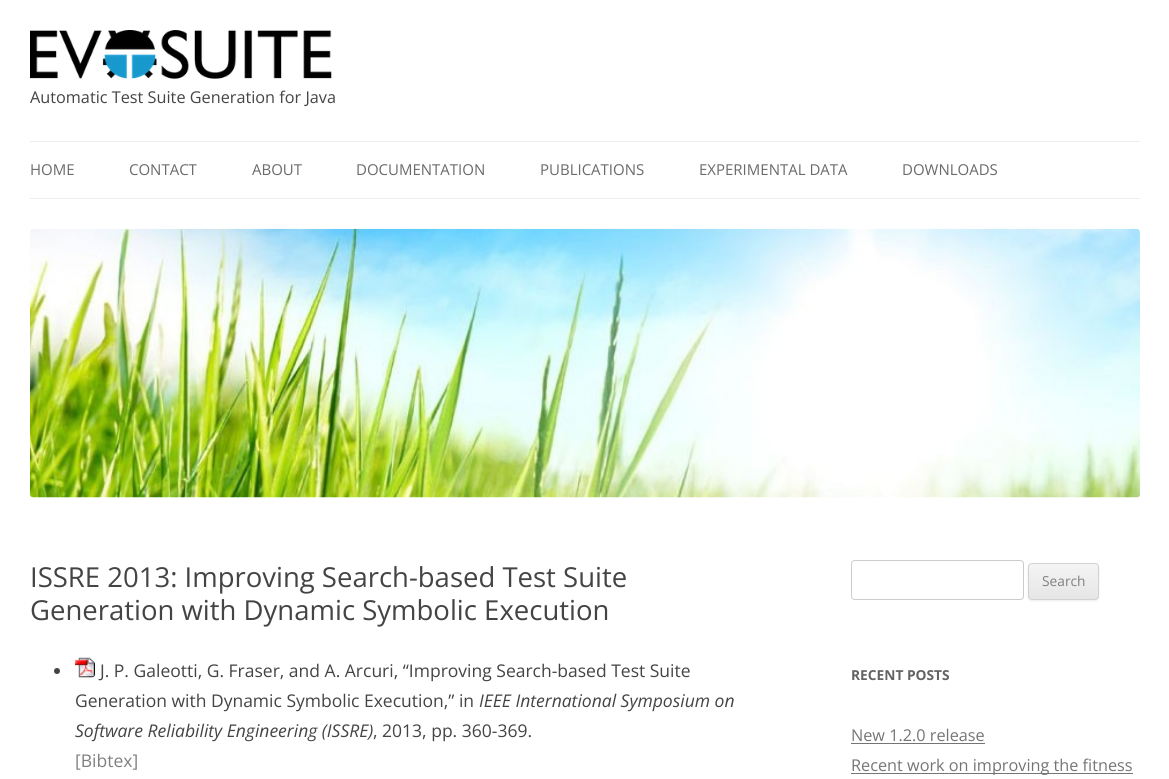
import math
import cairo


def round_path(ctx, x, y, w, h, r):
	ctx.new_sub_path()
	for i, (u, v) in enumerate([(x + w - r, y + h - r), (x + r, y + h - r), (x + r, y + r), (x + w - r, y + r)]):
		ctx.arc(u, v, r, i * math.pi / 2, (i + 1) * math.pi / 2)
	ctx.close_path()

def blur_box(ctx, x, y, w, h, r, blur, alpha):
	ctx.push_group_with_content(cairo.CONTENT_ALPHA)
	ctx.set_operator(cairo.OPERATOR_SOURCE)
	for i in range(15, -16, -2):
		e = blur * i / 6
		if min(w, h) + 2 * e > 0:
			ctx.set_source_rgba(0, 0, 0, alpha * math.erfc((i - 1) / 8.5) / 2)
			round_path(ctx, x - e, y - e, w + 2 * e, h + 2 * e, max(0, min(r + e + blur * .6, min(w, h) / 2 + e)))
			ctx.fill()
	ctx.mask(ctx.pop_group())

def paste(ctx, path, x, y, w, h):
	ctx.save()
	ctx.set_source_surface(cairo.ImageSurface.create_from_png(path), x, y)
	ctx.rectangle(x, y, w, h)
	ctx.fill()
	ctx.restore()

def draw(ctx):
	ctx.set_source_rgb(1, 1, 1)
	ctx.paint()
	paste(ctx, 'media/1.png', 30, 30, 302, 49)
	ctx.select_font_face('Open Sans')
	ctx.set_font_size(16.25)
	ctx.set_source_rgb(0.267, 0.267, 0.267)
	ctx.move_to(30, 103)
	ctx.show_text('Automatic Test Suite Generation for Java')
	ctx.set_source_rgb(0.929, 0.929, 0.929)
	ctx.rectangle(30, 141, 1110, 1)
	ctx.fill()
	ctx.rectangle(30, 198, 1110, 1)
	ctx.fill()
	ctx.set_font_size(15)
	ctx.set_source_rgb(0.416, 0.416, 0.416)
	for x, y, s in [
		(30, 175, 'HOME'),
		(129, 175, 'CONTACT'),
		(252, 175, 'ABOUT'),
		(356, 175, 'DOCUMENTATION'),
		(540, 175, 'PUBLICATIONS'),
		(699, 175, 'EXPERIMENTAL DATA'),
		(902, 175, 'DOWNLOADS'),
	]:
		ctx.move_to(x, y)
		ctx.show_text(s)
	paste(ctx, 'media/2.png', 30, 228, 1110, 270)
	ctx.set_font_size(27.5)
	ctx.set_source_rgb(0.267, 0.267, 0.267)
	ctx.move_to(30, 587)
	ctx.show_text('ISSRE 2013: Improving Search-based Test Suite')
	ctx.move_to(30, 620)
	ctx.show_text('Generation with Dynamic Symbolic Execution')
	ctx.new_path()
	ctx.arc(57, 671, 3, 0, 2 * math.pi)
	ctx.fill()
	paste(ctx, 'media/3.png', 75, 657, 20, 21)
	ctx.set_font_size(17.5)
	ctx.move_to(100, 677)
	ctx.show_text('J. P. Galeotti, G. Fraser, and A. Arcuri, “Improving Search-based Test Suite')
	ctx.move_to(75, 707)
	ctx.show_text('Generation with Dynamic Symbolic Execution,” in')
	ctx.select_font_face('Open Sans', cairo.FONT_SLANT_ITALIC)
	ctx.move_to(479, 707)
	ctx.show_text('IEEE International Symposium on')
	ctx.move_to(75, 737)
	ctx.show_text('Software Reliability Engineering (ISSRE)')
	ctx.select_font_face('Open Sans')
	ctx.move_to(373, 737)
	ctx.show_text(', 2013, pp. 360-369.')
	ctx.set_source_rgb(0.502, 0.502, 0.502)
	ctx.move_to(75, 767)
	ctx.show_text('[Bibtex]')
	round_path(ctx, 851.5, 560.5, 172, 39, 3.5)
	ctx.set_source_rgb(0.8, 0.8, 0.8)
	ctx.set_line_width(1)
	ctx.stroke()
	ctx.set_source_rgb(0.251, 0.251, 0.251)
	blur_box(ctx, 1028, 564, 71, 37, 4, 1, 0.1)
	ctx.save()
	round_path(ctx, 1028, 563, 71, 37, 4)
	ctx.clip()
	gradient = cairo.LinearGradient(1063, 564, 1063, 599)
	gradient.add_color_stop_rgba(0, 0.957, 0.957, 0.957, 1)
	gradient.add_color_stop_rgba(1, 0.902, 0.902, 0.902, 1)
	ctx.set_source(gradient)
	ctx.rectangle(1028, 564, 71, 35)
	ctx.fill()
	ctx.restore()
	round_path(ctx, 1028.5, 563.5, 70, 36, 3.5)
	ctx.set_source_rgb(0.824, 0.824, 0.824)
	ctx.stroke()
	ctx.set_font_size(13.75)
	ctx.set_source_rgb(0.502, 0.502, 0.502)
	ctx.move_to(1042, 586)
	ctx.show_text('Search')
	ctx.select_font_face('Open Sans', cairo.FONT_SLANT_NORMAL, cairo.FONT_WEIGHT_BOLD)
	ctx.set_source_rgb(0.388, 0.388, 0.388)
	ctx.move_to(851, 680)
	ctx.show_text('RECENT POSTS')
	ctx.select_font_face('Open Sans')
	ctx.set_font_size(16.25)
	ctx.set_source_rgb(0.459, 0.459, 0.459)
	ctx.move_to(851, 741)
	ctx.show_text('New 1.2.0 release')
	ctx.rectangle(851, 743, 134, 1)
	ctx.fill()
	ctx.rectangle(851, 773, 282, 1)
	ctx.fill()
	ctx.move_to(851, 771)
	ctx.show_text('Recent work on improving the fitness')


surface = cairo.ImageSurface(cairo.FORMAT_RGB24, 1169, 779)
ctx = cairo.Context(surface)
options = cairo.FontOptions()
options.set_hint_metrics(cairo.HINT_METRICS_OFF)
options.set_hint_style(cairo.HINT_STYLE_NONE)
ctx.set_font_options(options)
ctx.set_miter_limit(4)
draw(ctx)
surface.write_to_png('image.png')
